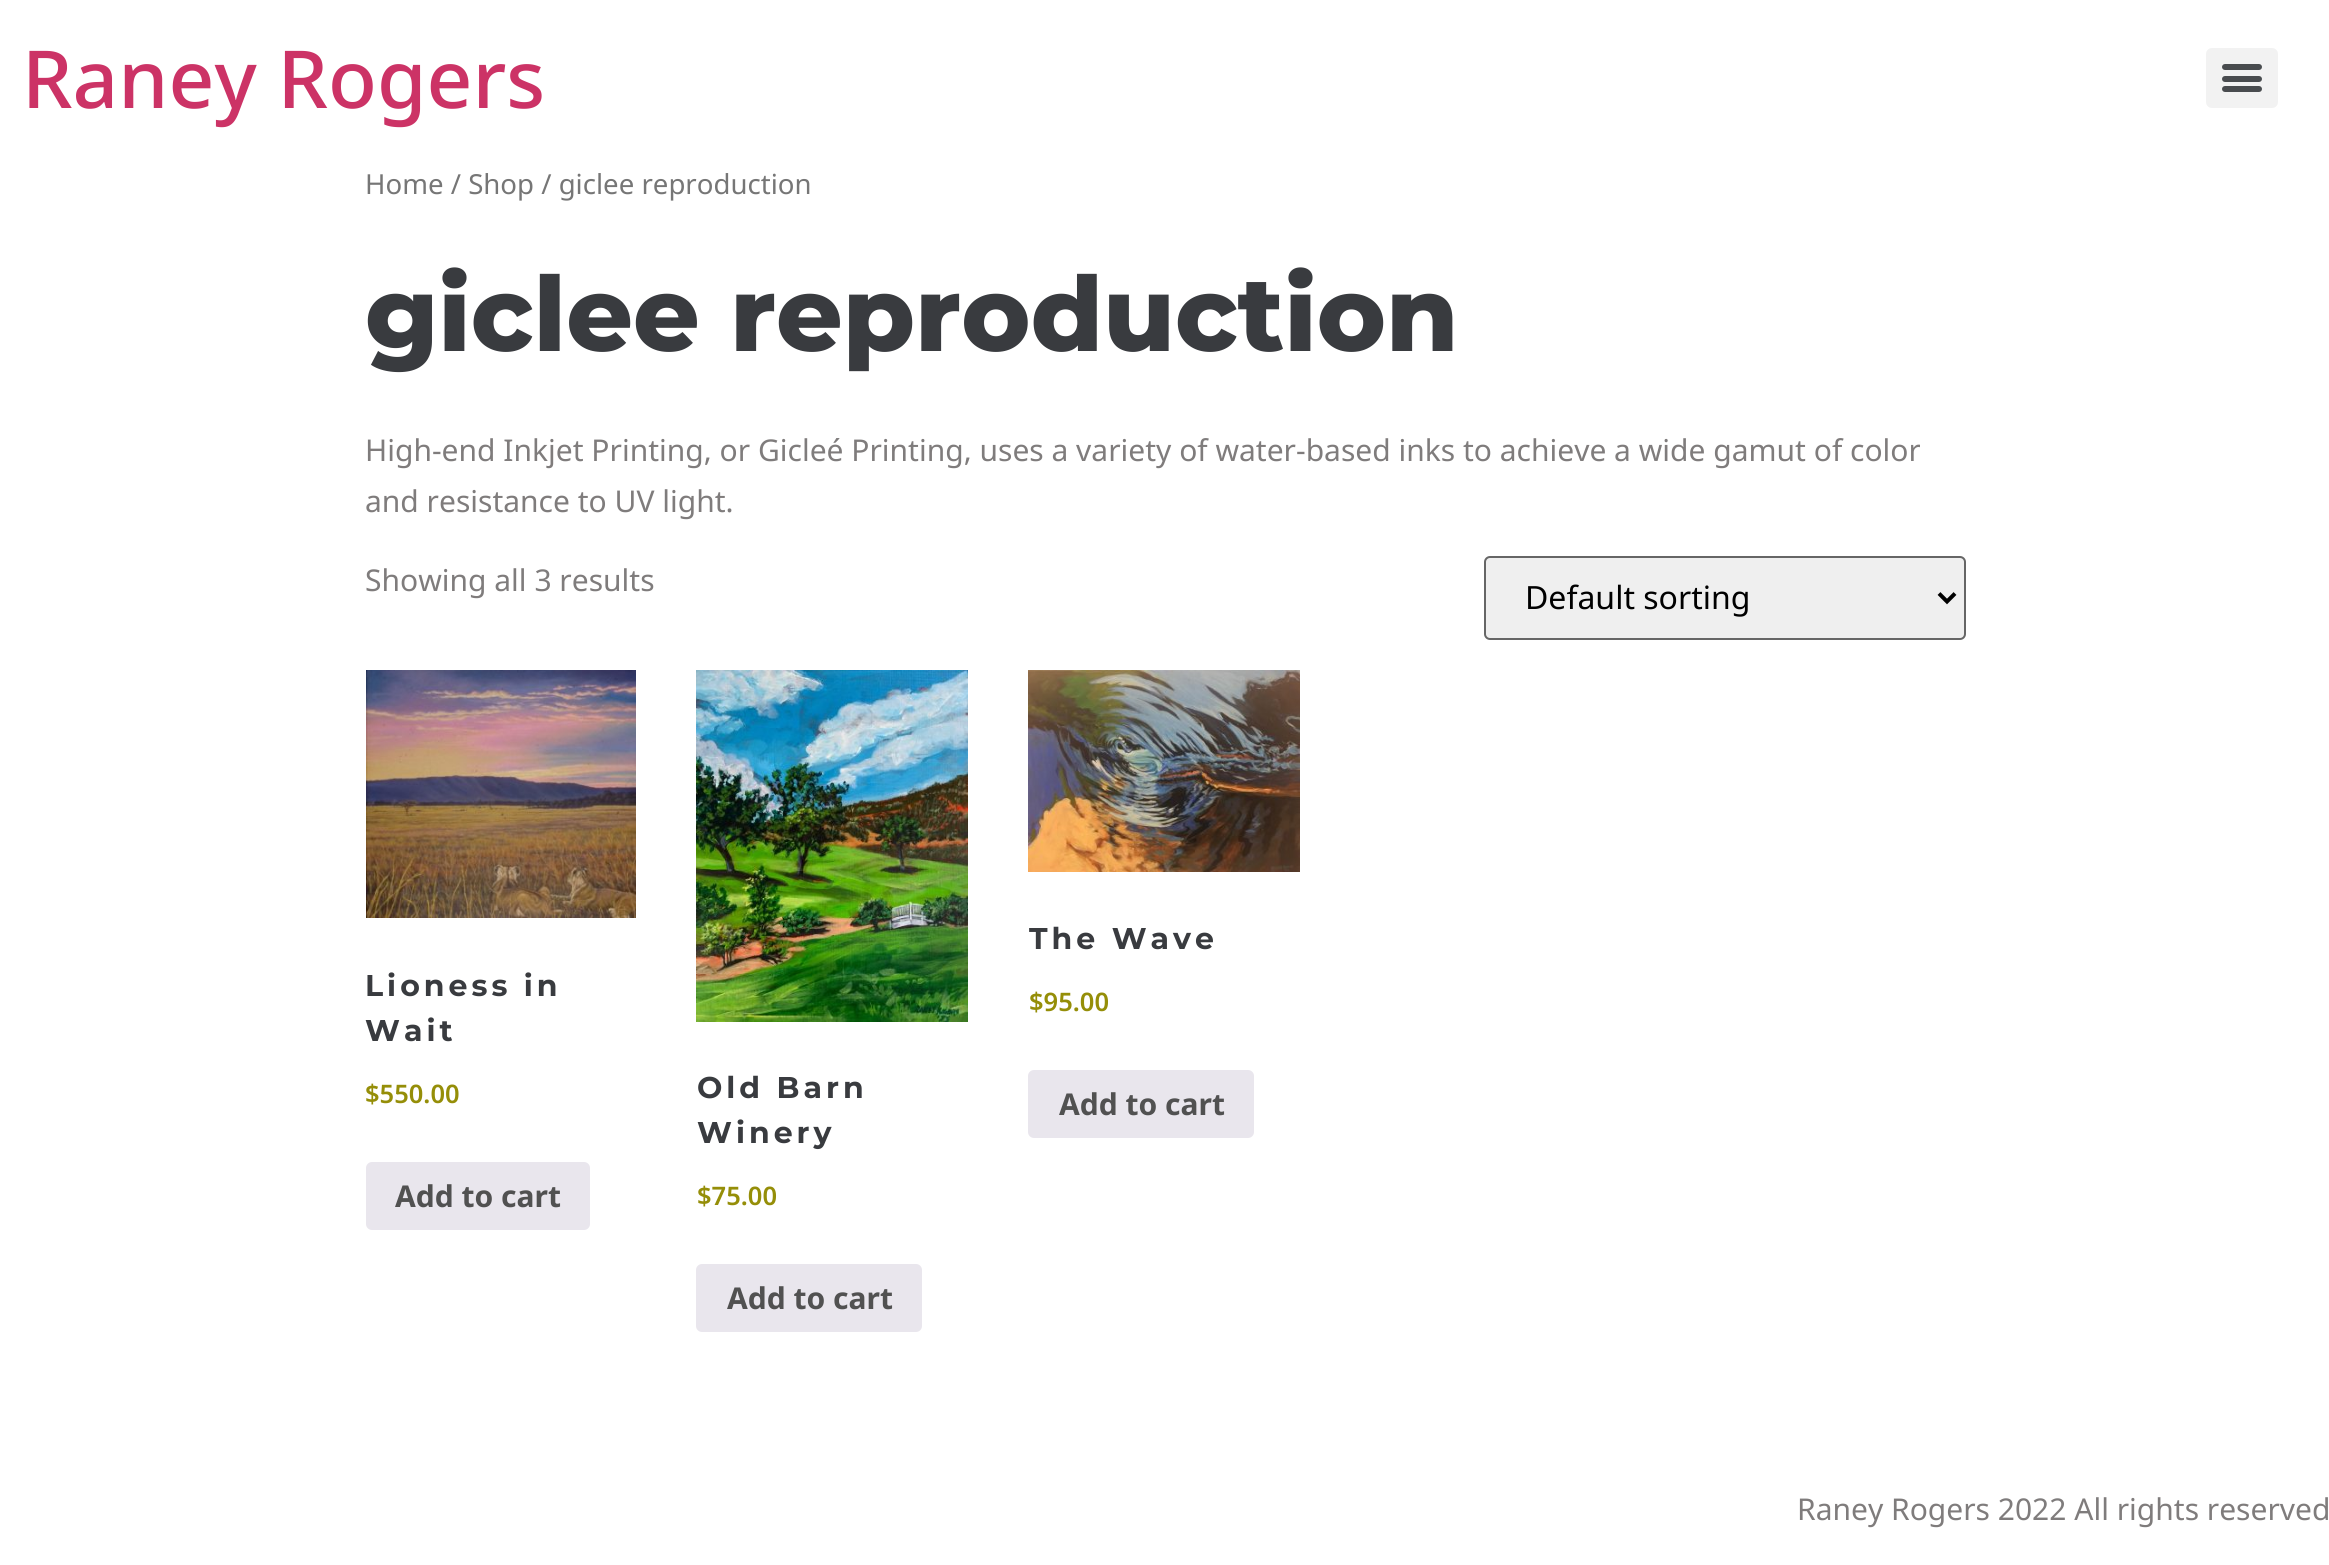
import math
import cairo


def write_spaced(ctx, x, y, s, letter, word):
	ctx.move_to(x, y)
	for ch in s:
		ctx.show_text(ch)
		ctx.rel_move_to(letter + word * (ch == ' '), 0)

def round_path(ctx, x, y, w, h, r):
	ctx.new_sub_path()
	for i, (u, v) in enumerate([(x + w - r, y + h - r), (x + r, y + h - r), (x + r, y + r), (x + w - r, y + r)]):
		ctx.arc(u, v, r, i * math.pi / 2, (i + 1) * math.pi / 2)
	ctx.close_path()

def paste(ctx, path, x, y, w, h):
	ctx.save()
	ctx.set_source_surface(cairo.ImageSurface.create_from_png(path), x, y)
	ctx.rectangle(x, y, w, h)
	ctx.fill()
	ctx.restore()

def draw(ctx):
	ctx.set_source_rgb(1, 1, 1)
	ctx.paint()
	ctx.select_font_face('Noto Sans Medium')
	ctx.set_font_size(80)
	ctx.set_source_rgb(0.8, 0.2, 0.4)
	ctx.move_to(22, 108)
	ctx.show_text('Raney Rogers')
	ctx.set_source_rgb(0.949, 0.949, 0.949)
	round_path(ctx, 2206, 48, 72, 60, 6)
	ctx.fill()
	ctx.set_source_rgb(0.286, 0.298, 0.31)
	round_path(ctx, 2222, 76, 40, 6, 3)
	ctx.fill()
	round_path(ctx, 2222, 64, 40, 6, 3)
	ctx.fill()
	round_path(ctx, 2222, 86, 40, 6, 3)
	ctx.fill()
	ctx.select_font_face('Noto Sans')
	ctx.set_font_size(27.6)
	ctx.set_source_rgb(0.463, 0.463, 0.463)
	ctx.move_to(365, 194)
	ctx.show_text('Home / Shop / giclee reproduction')
	ctx.select_font_face('Montserrat ExtraBold')
	ctx.set_font_size(104)
	ctx.set_source_rgb(0.224, 0.231, 0.247)
	ctx.move_to(365, 351)
	ctx.show_text('giclee reproduction')
	ctx.select_font_face('Noto Sans')
	ctx.set_font_size(30)
	ctx.set_source_rgb(0.498, 0.486, 0.486)
	for x, y, s in [
		(365, 461, 'High-end Inkjet Printing, or Gicleé Printing, uses a variety of water-based inks to achieve a wide gamut of color'),
		(365, 512, 'and resistance to UV light.'),
		(365, 591, 'Showing all 3 results'),
	]:
		ctx.move_to(x, y)
		ctx.show_text(s)
	ctx.set_source_rgb(0.937, 0.937, 0.937)
	round_path(ctx, 1485, 557, 480, 82, 5)
	ctx.fill_preserve()
	ctx.set_source_rgb(0.4, 0.4, 0.4)
	ctx.stroke()
	ctx.new_path()
	ctx.move_to(1939, 593.5)
	ctx.line_to(1947, 601.5)
	ctx.line_to(1955, 593.5)
	ctx.set_source_rgb(0, 0, 0)
	ctx.set_line_width(4)
	ctx.stroke()
	ctx.set_font_size(32)
	ctx.move_to(1525, 609)
	ctx.show_text('Default sorting')
	paste(ctx, 'media/1.png', 366, 670, 270, 248)
	ctx.select_font_face('Montserrat', cairo.FONT_SLANT_NORMAL, cairo.FONT_WEIGHT_BOLD)
	ctx.set_font_size(30)
	ctx.set_source_rgb(0.224, 0.231, 0.247)
	write_spaced(ctx, 365, 996, 'Lioness in', 4, 0)
	write_spaced(ctx, 365, 1041, 'Wait', 4, 0)
	ctx.select_font_face('Noto Sans SemiBold')
	ctx.set_font_size(25.5)
	ctx.set_source_rgb(0.584, 0.557, 0.035)
	ctx.move_to(365, 1103)
	ctx.show_text('$550.00')
	ctx.set_source_rgb(0.914, 0.902, 0.929)
	round_path(ctx, 366, 1162, 224, 68, 6)
	ctx.fill()
	ctx.select_font_face('Noto Sans', cairo.FONT_SLANT_NORMAL, cairo.FONT_WEIGHT_BOLD)
	ctx.set_font_size(30)
	ctx.set_source_rgb(0.318, 0.318, 0.318)
	ctx.move_to(395, 1207)
	ctx.show_text('Add to cart')
	paste(ctx, 'media/2.png', 696, 670, 272, 352)
	ctx.select_font_face('Montserrat', cairo.FONT_SLANT_NORMAL, cairo.FONT_WEIGHT_BOLD)
	ctx.set_source_rgb(0.224, 0.231, 0.247)
	write_spaced(ctx, 697, 1098, 'Old Barn', 4, 0)
	write_spaced(ctx, 697, 1143, 'Winery', 4, 0)
	ctx.select_font_face('Noto Sans SemiBold')
	ctx.set_font_size(25.5)
	ctx.set_source_rgb(0.584, 0.557, 0.035)
	ctx.move_to(697, 1205)
	ctx.show_text('$75.00')
	ctx.set_source_rgb(0.914, 0.902, 0.929)
	round_path(ctx, 696, 1264, 226, 68, 6)
	ctx.fill()
	ctx.select_font_face('Noto Sans', cairo.FONT_SLANT_NORMAL, cairo.FONT_WEIGHT_BOLD)
	ctx.set_font_size(30)
	ctx.set_source_rgb(0.318, 0.318, 0.318)
	ctx.move_to(727, 1309)
	ctx.show_text('Add to cart')
	paste(ctx, 'media/3.png', 1028, 670, 272, 202)
	ctx.select_font_face('Montserrat', cairo.FONT_SLANT_NORMAL, cairo.FONT_WEIGHT_BOLD)
	ctx.set_source_rgb(0.224, 0.231, 0.247)
	write_spaced(ctx, 1029, 949, 'The Wave', 4, 0)
	ctx.select_font_face('Noto Sans SemiBold')
	ctx.set_font_size(25.5)
	ctx.set_source_rgb(0.584, 0.557, 0.035)
	ctx.move_to(1029, 1011)
	ctx.show_text('$95.00')
	ctx.set_source_rgb(0.914, 0.902, 0.929)
	round_path(ctx, 1028, 1070, 226, 68, 6)
	ctx.fill()
	ctx.select_font_face('Noto Sans', cairo.FONT_SLANT_NORMAL, cairo.FONT_WEIGHT_BOLD)
	ctx.set_font_size(30)
	ctx.set_source_rgb(0.318, 0.318, 0.318)
	ctx.move_to(1059, 1115)
	ctx.show_text('Add to cart')
	ctx.select_font_face('Noto Sans')
	ctx.set_source_rgb(0.498, 0.486, 0.486)
	ctx.move_to(1797, 1520)
	ctx.show_text('Raney Rogers 2022 All rights reserved')


surface = cairo.ImageSurface(cairo.FORMAT_RGB24, 2329, 1565)
ctx = cairo.Context(surface)
options = cairo.FontOptions()
options.set_hint_metrics(cairo.HINT_METRICS_OFF)
options.set_hint_style(cairo.HINT_STYLE_NONE)
ctx.set_font_options(options)
ctx.set_miter_limit(4)
draw(ctx)
surface.write_to_png('image.png')
